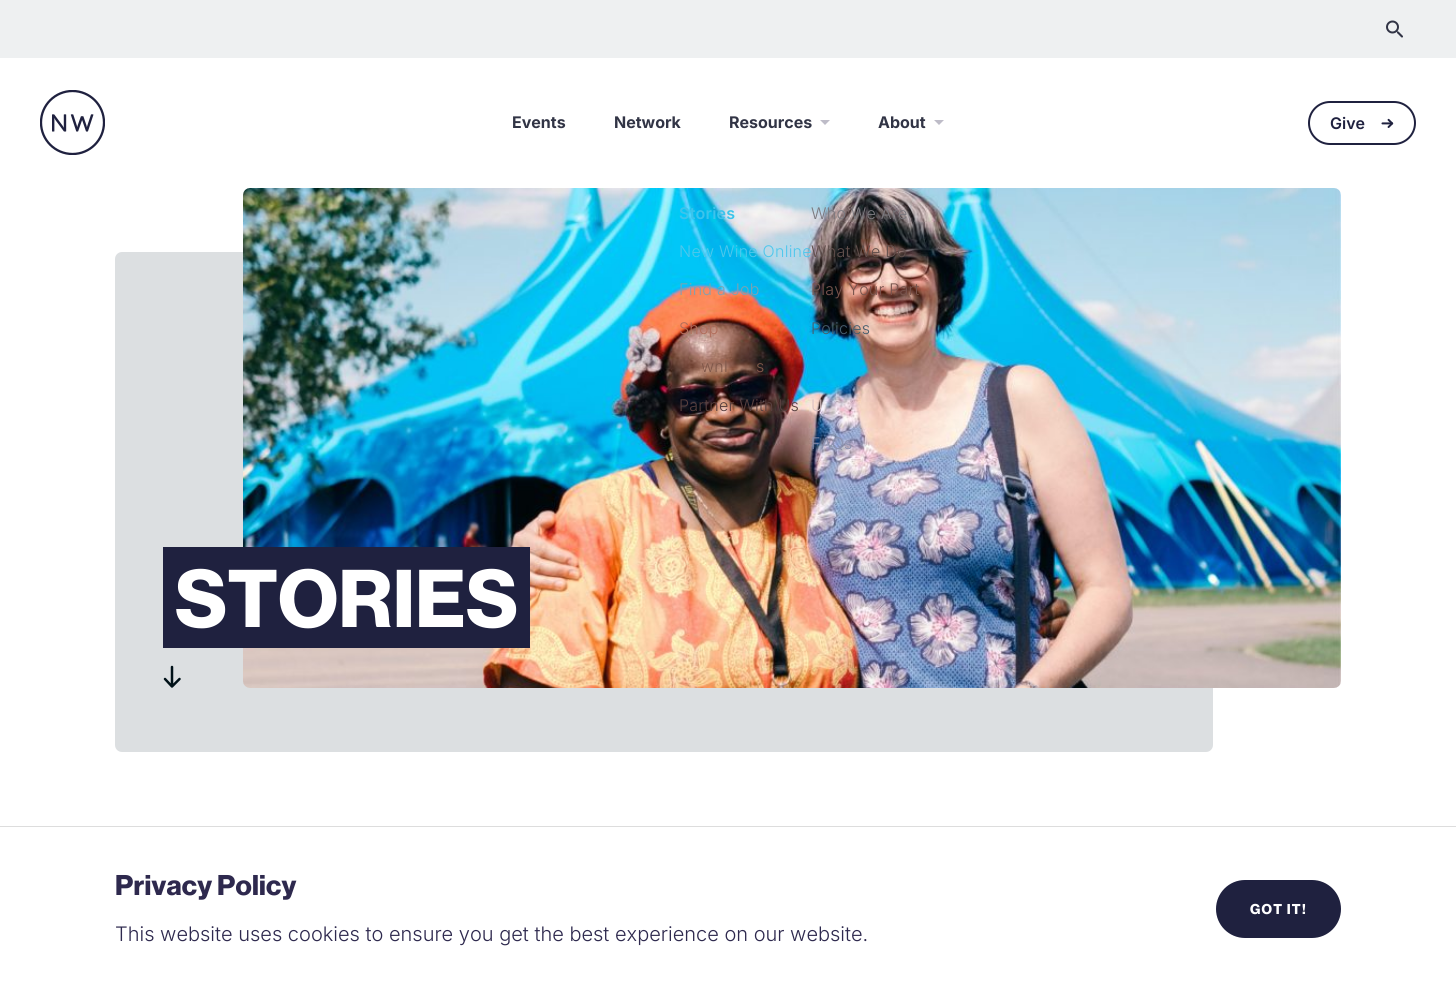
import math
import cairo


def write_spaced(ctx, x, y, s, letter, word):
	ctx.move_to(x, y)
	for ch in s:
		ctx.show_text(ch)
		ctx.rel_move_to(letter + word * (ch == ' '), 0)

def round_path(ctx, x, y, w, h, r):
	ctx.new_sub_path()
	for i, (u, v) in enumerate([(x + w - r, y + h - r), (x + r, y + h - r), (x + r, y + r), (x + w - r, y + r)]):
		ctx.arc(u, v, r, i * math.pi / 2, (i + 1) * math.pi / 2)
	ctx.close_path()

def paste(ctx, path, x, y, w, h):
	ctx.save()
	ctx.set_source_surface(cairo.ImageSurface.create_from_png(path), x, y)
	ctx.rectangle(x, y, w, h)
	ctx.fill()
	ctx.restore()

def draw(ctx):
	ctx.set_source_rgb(1, 1, 1)
	ctx.paint()
	ctx.set_source_rgb(0.933, 0.941, 0.945)
	ctx.rectangle(0, 0, 1456, 58)
	ctx.fill()
	paste(ctx, 'media/1.png', 1386, 20, 17, 18)
	paste(ctx, 'media/2.png', 40, 90, 65, 65)
	ctx.select_font_face('Inter', cairo.FONT_SLANT_NORMAL, cairo.FONT_WEIGHT_BOLD)
	ctx.set_font_size(16)
	ctx.set_source_rgb(0.192, 0.204, 0.271)
	for x, y, s in [
		(512, 128, 'Events'),
		(614, 128, 'Network'),
		(729, 128, 'Resources'),
	]:
		ctx.move_to(x, y)
		ctx.show_text(s)
	ctx.set_source_rgb(0.745, 0.737, 0.784)
	ctx.set_fill_rule(cairo.FILL_RULE_EVEN_ODD)
	ctx.new_path()
	ctx.move_to(820, 120)
	ctx.line_to(830, 120)
	ctx.line_to(825, 125)
	ctx.close_path()
	ctx.fill()
	ctx.set_source_rgb(0.863, 0.875, 0.882)
	round_path(ctx, 115, 252, 1098, 500, 7)
	ctx.fill()
	paste(ctx, 'media/4.png', 243, 188, 1098, 500)
	ctx.select_font_face('Inter SemiBold')
	ctx.set_source_rgb(0.235, 0.769, 0.922)
	write_spaced(ctx, 679, 219, 'Stories', 0.25, 0)
	ctx.select_font_face('Inter Light')
	ctx.set_source_rgb(0.31, 0.78, 0.922)
	write_spaced(ctx, 679, 257, 'New Wine Online', 0.25, 0)
	ctx.set_source_rgb(0.51, 0.627, 0.682)
	write_spaced(ctx, 679, 295, 'Find a Job', 0.25, 0)
	ctx.set_source_rgb(0.694, 0.427, 0.353)
	write_spaced(ctx, 679, 334, 'Shop', 0.25, 0)
	ctx.set_source_rgb(0.502, 0.345, 0.29)
	write_spaced(ctx, 701, 372, 'wnl', 0.25, 0)
	write_spaced(ctx, 756, 372, 's', 0.25, 0)
	ctx.set_source_rgb(0.345, 0.247, 0.243)
	write_spaced(ctx, 679, 411, 'Partner With Us', 0.25, 0)
	ctx.select_font_face('Inter', cairo.FONT_SLANT_NORMAL, cairo.FONT_WEIGHT_BOLD)
	ctx.set_source_rgb(0.192, 0.204, 0.271)
	ctx.move_to(878, 128)
	ctx.show_text('About')
	ctx.set_source_rgb(0.745, 0.737, 0.784)
	ctx.new_path()
	ctx.move_to(934, 120)
	ctx.line_to(944, 120)
	ctx.line_to(939, 125)
	ctx.close_path()
	ctx.fill()
	ctx.select_font_face('Inter Light')
	ctx.set_source_rgb(0.482, 0.475, 0.498)
	write_spaced(ctx, 811, 219, 'Who We Are', 0.25, 0)
	ctx.set_source_rgb(0.38, 0.31, 0.298)
	write_spaced(ctx, 811, 257, 'What We Do', 0.25, 0)
	ctx.set_source_rgb(0.471, 0.329, 0.302)
	write_spaced(ctx, 811, 295, 'Play Your Part', 0.25, 0)
	ctx.set_source_rgb(0.278, 0.373, 0.431)
	write_spaced(ctx, 811, 334, 'Policies', 0.25, 0)
	ctx.set_source_rgb(0.847, 0.753, 0.761)
	write_spaced(ctx, 811, 411, 'U', 0.25, 0)
	ctx.set_source_rgb(0.549, 0.569, 0.682)
	write_spaced(ctx, 811, 449, 'FAQs', 0.25, 0)
	round_path(ctx, 1309, 102, 106, 42, 21)
	ctx.set_source_rgb(0.122, 0.129, 0.247)
	ctx.stroke()
	ctx.select_font_face('Inter SemiBold')
	ctx.move_to(1330, 129)
	ctx.show_text('Give')
	paste(ctx, 'media/3.png', 1381, 118, 13, 10)
	ctx.rectangle(175, 547, 355, 101)
	ctx.fill()
	ctx.select_font_face('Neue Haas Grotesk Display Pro', cairo.FONT_SLANT_NORMAL, cairo.FONT_WEIGHT_BOLD)
	ctx.set_font_size(80)
	ctx.set_source_rgb(1, 1, 1)
	write_spaced(ctx, 175, 627, 'STORIES', 0.5, 0)
	ctx.set_source_rgb(0.122, 0.129, 0.247)
	ctx.rectangle(163, 547, 12, 101)
	ctx.fill()
	ctx.new_path()
	ctx.move_to(172, 667)
	ctx.line_to(172, 686)
	ctx.move_to(179.5, 679)
	ctx.line_to(172, 686.5)
	ctx.move_to(165, 679)
	ctx.line_to(172, 686.5)
	ctx.set_source_rgb(0, 0.067, 0.094)
	ctx.set_line_width(2.5)
	ctx.set_line_cap(cairo.LINE_CAP_ROUND)
	ctx.stroke()
	ctx.set_source_rgb(0.867, 0.867, 0.867)
	ctx.rectangle(0, 826, 1456, 1)
	ctx.fill()
	ctx.set_font_size(28)
	ctx.set_source_rgb(0.18, 0.161, 0.306)
	write_spaced(ctx, 115, 895, 'Privacy Policy', 0.25, 0)
	ctx.select_font_face('Inter Light')
	ctx.set_font_size(20)
	ctx.move_to(115, 941)
	ctx.show_text('This website uses cookies to ensure you get the best experience on our website.')
	ctx.set_source_rgb(0.122, 0.129, 0.247)
	round_path(ctx, 1217, 881, 123, 56, 28)
	ctx.fill_preserve()
	ctx.set_line_width(2)
	ctx.set_line_cap(cairo.LINE_CAP_BUTT)
	ctx.stroke()
	ctx.select_font_face('Neue Haas Grotesk Display Pro', cairo.FONT_SLANT_NORMAL, cairo.FONT_WEIGHT_BOLD)
	ctx.set_font_size(14)
	ctx.set_source_rgb(1, 1, 1)
	write_spaced(ctx, 1250, 914, 'GOT IT!', 1.25, 0)


surface = cairo.ImageSurface(cairo.FORMAT_RGB24, 1456, 990)
ctx = cairo.Context(surface)
options = cairo.FontOptions()
options.set_hint_metrics(cairo.HINT_METRICS_OFF)
options.set_hint_style(cairo.HINT_STYLE_NONE)
ctx.set_font_options(options)
ctx.set_miter_limit(4)
draw(ctx)
surface.write_to_png('image.png')
